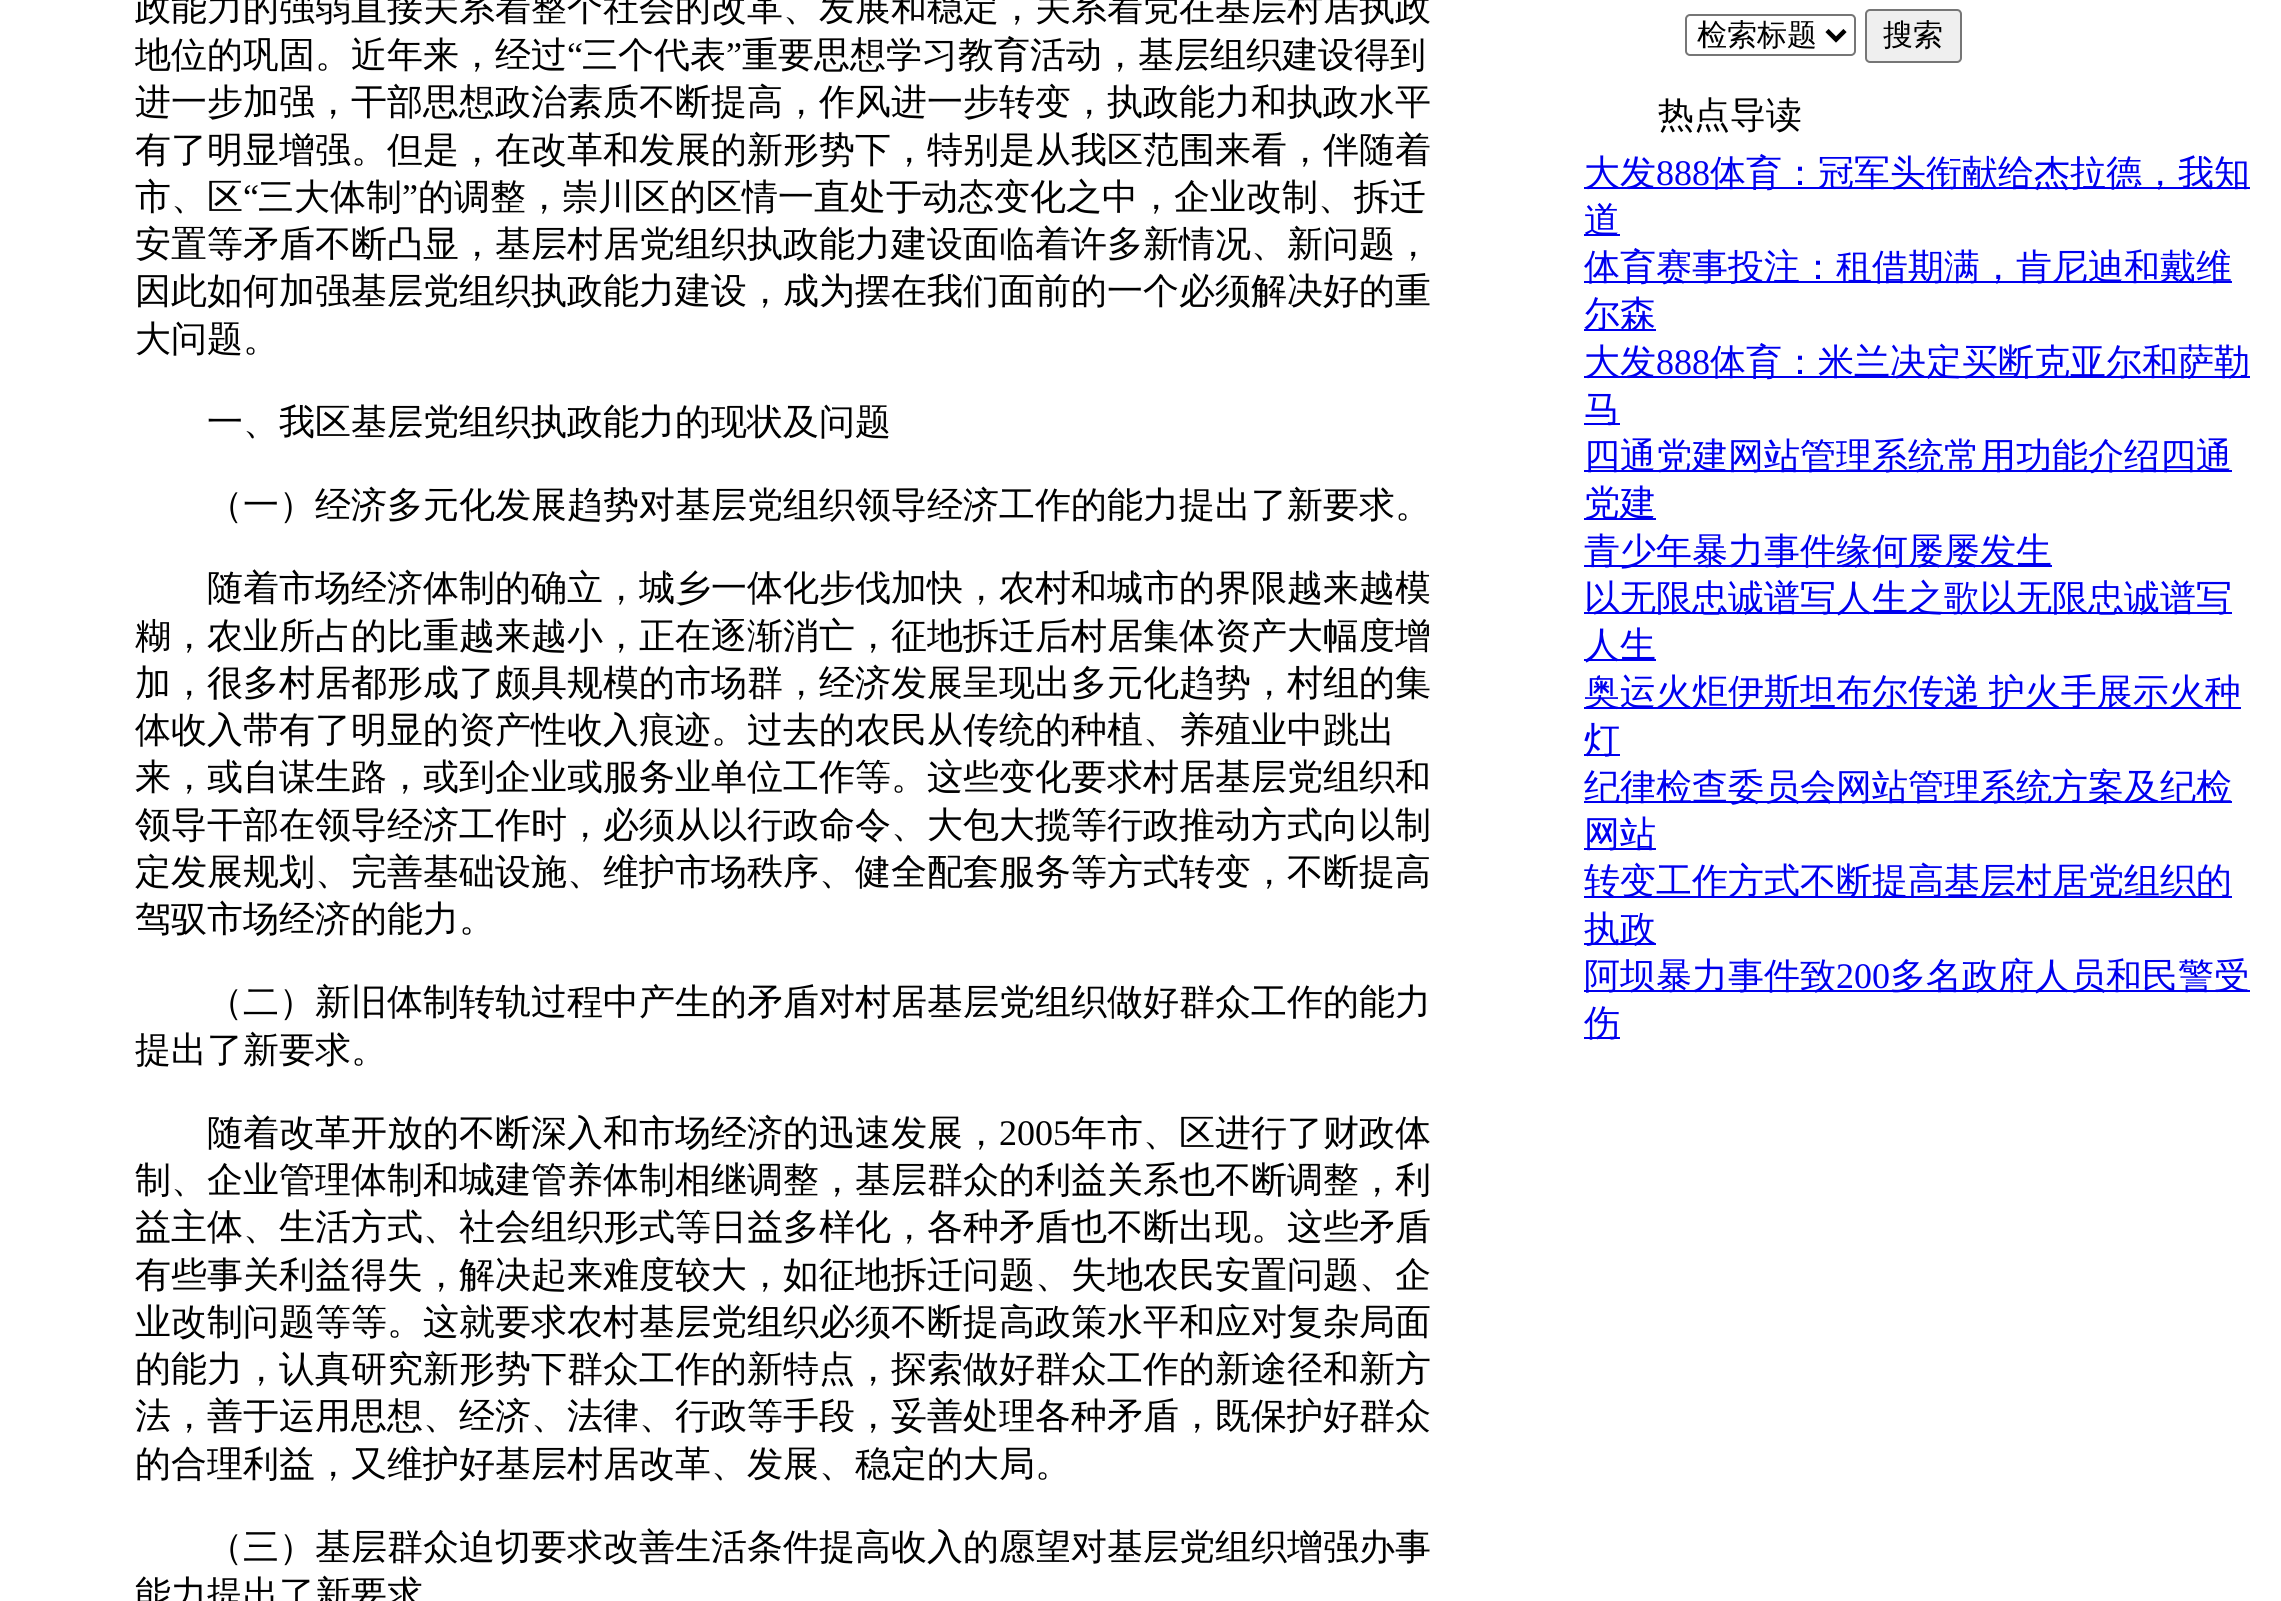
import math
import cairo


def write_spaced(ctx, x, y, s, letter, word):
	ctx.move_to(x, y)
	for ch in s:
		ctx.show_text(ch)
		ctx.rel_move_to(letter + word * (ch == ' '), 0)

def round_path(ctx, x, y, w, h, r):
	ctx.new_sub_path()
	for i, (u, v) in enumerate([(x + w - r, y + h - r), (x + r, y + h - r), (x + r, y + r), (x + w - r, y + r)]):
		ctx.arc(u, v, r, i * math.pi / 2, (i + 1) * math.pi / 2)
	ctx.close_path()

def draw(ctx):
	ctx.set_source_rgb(1, 1, 1)
	ctx.paint()
	ctx.select_font_face('WenQuanYi Zen Hei Medium')
	ctx.set_font_size(36)
	ctx.set_source_rgb(0, 0, 0)
	ctx.move_to(135, 20)
	ctx.show_text('政能力的强弱直接关系着整个社会的改革、发展和稳定，关系着党在基层村居执政')
	ctx.move_to(135, 67)
	ctx.show_text('地位的巩固。近年来，经过')
	ctx.select_font_face('Liberation Serif')
	ctx.move_to(567, 67)
	ctx.show_text('“')
	ctx.select_font_face('WenQuanYi Zen Hei Medium')
	ctx.move_to(582, 67)
	ctx.show_text('三个代表')
	ctx.select_font_face('Liberation Serif')
	ctx.move_to(726, 67)
	ctx.show_text('”')
	ctx.select_font_face('WenQuanYi Zen Hei Medium')
	for x, y, s in [
		(742, 67, '重要思想学习教育活动，基层组织建设得到'),
		(135, 114, '进一步加强，干部思想政治素质不断提高，作风进一步转变，执政能力和执政水平'),
		(135, 162, '有了明显增强。但是，在改革和发展的新形势下，特别是从我区范围来看，伴随着'),
		(135, 209, '市、区'),
	]:
		ctx.move_to(x, y)
		ctx.show_text(s)
	ctx.select_font_face('Liberation Serif')
	ctx.move_to(243, 209)
	ctx.show_text('“')
	ctx.select_font_face('WenQuanYi Zen Hei Medium')
	ctx.move_to(258, 209)
	ctx.show_text('三大体制')
	ctx.select_font_face('Liberation Serif')
	ctx.move_to(402, 209)
	ctx.show_text('”')
	ctx.select_font_face('WenQuanYi Zen Hei Medium')
	for x, y, s in [
		(418, 209, '的调整，崇川区的区情一直处于动态变化之中，企业改制、拆迁'),
		(135, 256, '安置等矛盾不断凸显，基层村居党组织执政能力建设面临着许多新情况、新问题，'),
		(135, 303, '因此如何加强基层党组织执政能力建设，成为摆在我们面前的一个必须解决好的重'),
		(135, 351, '大问题。'),
		(207, 434, '一、我区基层党组织执政能力的现状及问题'),
		(207, 517, '（一）经济多元化发展趋势对基层党组织领导经济工作的能力提出了新要求。'),
		(207, 600, '随着市场经济体制的确立，城乡一体化步伐加快，农村和城市的界限越来越模'),
		(135, 648, '糊，农业所占的比重越来越小，正在逐渐消亡，征地拆迁后村居集体资产大幅度增'),
		(135, 695, '加，很多村居都形成了颇具规模的市场群，经济发展呈现出多元化趋势，村组的集'),
		(135, 742, '体收入带有了明显的资产性收入痕迹。过去的农民从传统的种植、养殖业中跳出'),
		(135, 789, '来，或自谋生路，或到企业或服务业单位工作等。这些变化要求村居基层党组织和'),
		(135, 837, '领导干部在领导经济工作时，必须从以行政命令、大包大揽等行政推动方式向以制'),
		(135, 884, '定发展规划、完善基础设施、维护市场秩序、健全配套服务等方式转变，不断提高'),
		(135, 931, '驾驭市场经济的能力。'),
		(207, 1014, '（二）新旧体制转轨过程中产生的矛盾对村居基层党组织做好群众工作的能力'),
		(135, 1062, '提出了新要求。'),
		(207, 1145, '随着改革开放的不断深入和市场经济的迅速发展，'),
	]:
		ctx.move_to(x, y)
		ctx.show_text(s)
	ctx.select_font_face('Liberation Serif')
	ctx.move_to(999, 1145)
	ctx.show_text('2005')
	ctx.select_font_face('WenQuanYi Zen Hei Medium')
	for x, y, s in [
		(1071, 1145, '年市、区进行了财政体'),
		(135, 1192, '制、企业管理体制和城建管养体制相继调整，基层群众的利益关系也不断调整，利'),
		(135, 1239, '益主体、生活方式、社会组织形式等日益多样化，各种矛盾也不断出现。这些矛盾'),
		(135, 1287, '有些事关利益得失，解决起来难度较大，如征地拆迁问题、失地农民安置问题、企'),
		(135, 1334, '业改制问题等等。这就要求农村基层党组织必须不断提高政策水平和应对复杂局面'),
		(135, 1381, '的能力，认真研究新形势下群众工作的新特点，探索做好群众工作的新途径和新方'),
		(135, 1428, '法，善于运用思想、经济、法律、行政等手段，妥善处理各种矛盾，既保护好群众'),
		(135, 1476, '的合理利益，又维护好基层村居改革、发展、稳定的大局。'),
		(207, 1559, '（三）基层群众迫切要求改善生活条件提高收入的愿望对基层党组织增强办事'),
		(135, 1606, '能力提出了新要求'),
	]:
		ctx.move_to(x, y)
		ctx.show_text(s)
	round_path(ctx, 1686, 15, 169, 40, 4)
	ctx.set_source_rgb(0.463, 0.463, 0.463)
	ctx.stroke()
	ctx.new_path()
	ctx.move_to(1827, 30.5)
	ctx.line_to(1836, 39.5)
	ctx.line_to(1845, 30.5)
	ctx.set_source_rgb(0, 0, 0)
	ctx.set_line_width(4.5)
	ctx.stroke()
	ctx.set_font_size(30)
	ctx.move_to(1697, 45)
	ctx.show_text('检索标题')
	ctx.set_source_rgb(0.937, 0.937, 0.937)
	round_path(ctx, 1866, 10, 95, 52, 4)
	ctx.fill_preserve()
	ctx.set_source_rgb(0.463, 0.463, 0.463)
	ctx.set_line_width(2)
	ctx.stroke()
	ctx.set_source_rgb(0, 0, 0)
	ctx.move_to(1883, 45)
	ctx.show_text('搜索')
	ctx.set_font_size(36)
	ctx.move_to(1658, 127)
	ctx.show_text('热点导读')
	ctx.set_source_rgb(0, 0, 0.933)
	ctx.rectangle(1584, 187, 666, 2)
	ctx.fill()
	ctx.move_to(1584, 185)
	ctx.show_text('大发')
	ctx.select_font_face('Liberation Serif')
	ctx.move_to(1656, 185)
	ctx.show_text('888')
	ctx.select_font_face('WenQuanYi Zen Hei Medium')
	ctx.move_to(1710, 185)
	ctx.show_text('体育：冠军头衔献给杰拉德，我知')
	ctx.rectangle(1584, 234, 36, 2)
	ctx.fill()
	ctx.move_to(1584, 232)
	ctx.show_text('道')
	ctx.rectangle(1584, 281, 648, 2)
	ctx.fill()
	ctx.move_to(1584, 279)
	ctx.show_text('体育赛事投注：租借期满，肯尼迪和戴维')
	ctx.rectangle(1584, 329, 72, 2)
	ctx.fill()
	ctx.move_to(1584, 326)
	ctx.show_text('尔森')
	ctx.rectangle(1584, 376, 666, 2)
	ctx.fill()
	ctx.move_to(1584, 374)
	ctx.show_text('大发')
	ctx.select_font_face('Liberation Serif')
	ctx.move_to(1656, 374)
	ctx.show_text('888')
	ctx.select_font_face('WenQuanYi Zen Hei Medium')
	ctx.move_to(1710, 374)
	ctx.show_text('体育：米兰决定买断克亚尔和萨勒')
	ctx.rectangle(1584, 423, 36, 2)
	ctx.fill()
	ctx.move_to(1584, 421)
	ctx.show_text('马')
	ctx.rectangle(1584, 470, 648, 2)
	ctx.fill()
	ctx.move_to(1584, 468)
	ctx.show_text('四通党建网站管理系统常用功能介绍四通')
	ctx.rectangle(1584, 518, 72, 2)
	ctx.fill()
	ctx.move_to(1584, 515)
	ctx.show_text('党建')
	ctx.rectangle(1584, 565, 468, 2)
	ctx.fill()
	ctx.move_to(1584, 563)
	ctx.show_text('青少年暴力事件缘何屡屡发生')
	ctx.rectangle(1584, 612, 648, 2)
	ctx.fill()
	ctx.move_to(1584, 610)
	ctx.show_text('以无限忠诚谱写人生之歌以无限忠诚谱写')
	ctx.rectangle(1584, 659, 72, 2)
	ctx.fill()
	ctx.move_to(1584, 657)
	ctx.show_text('人生')
	ctx.rectangle(1584, 707, 657, 2)
	ctx.fill()
	write_spaced(ctx, 1584, 704, '奥运火炬伊斯坦布尔传递 护火手展示火种', 0, -2)
	ctx.rectangle(1584, 754, 36, 2)
	ctx.fill()
	ctx.move_to(1584, 752)
	ctx.show_text('灯')
	ctx.rectangle(1584, 801, 648, 2)
	ctx.fill()
	ctx.move_to(1584, 799)
	ctx.show_text('纪律检查委员会网站管理系统方案及纪检')
	ctx.rectangle(1584, 848, 72, 2)
	ctx.fill()
	ctx.move_to(1584, 846)
	ctx.show_text('网站')
	ctx.rectangle(1584, 896, 648, 2)
	ctx.fill()
	ctx.move_to(1584, 893)
	ctx.show_text('转变工作方式不断提高基层村居党组织的')
	ctx.rectangle(1584, 943, 72, 2)
	ctx.fill()
	ctx.move_to(1584, 941)
	ctx.show_text('执政')
	ctx.rectangle(1584, 990, 666, 2)
	ctx.fill()
	ctx.move_to(1584, 988)
	ctx.show_text('阿坝暴力事件致')
	ctx.select_font_face('Liberation Serif')
	ctx.move_to(1836, 988)
	ctx.show_text('200')
	ctx.select_font_face('WenQuanYi Zen Hei Medium')
	ctx.move_to(1890, 988)
	ctx.show_text('多名政府人员和民警受')
	ctx.rectangle(1584, 1037, 36, 2)
	ctx.fill()
	ctx.move_to(1584, 1035)
	ctx.show_text('伤')


surface = cairo.ImageSurface(cairo.FORMAT_RGB24, 2281, 1601)
ctx = cairo.Context(surface)
options = cairo.FontOptions()
options.set_hint_metrics(cairo.HINT_METRICS_OFF)
options.set_hint_style(cairo.HINT_STYLE_NONE)
ctx.set_font_options(options)
ctx.set_miter_limit(4)
draw(ctx)
surface.write_to_png('image.png')
